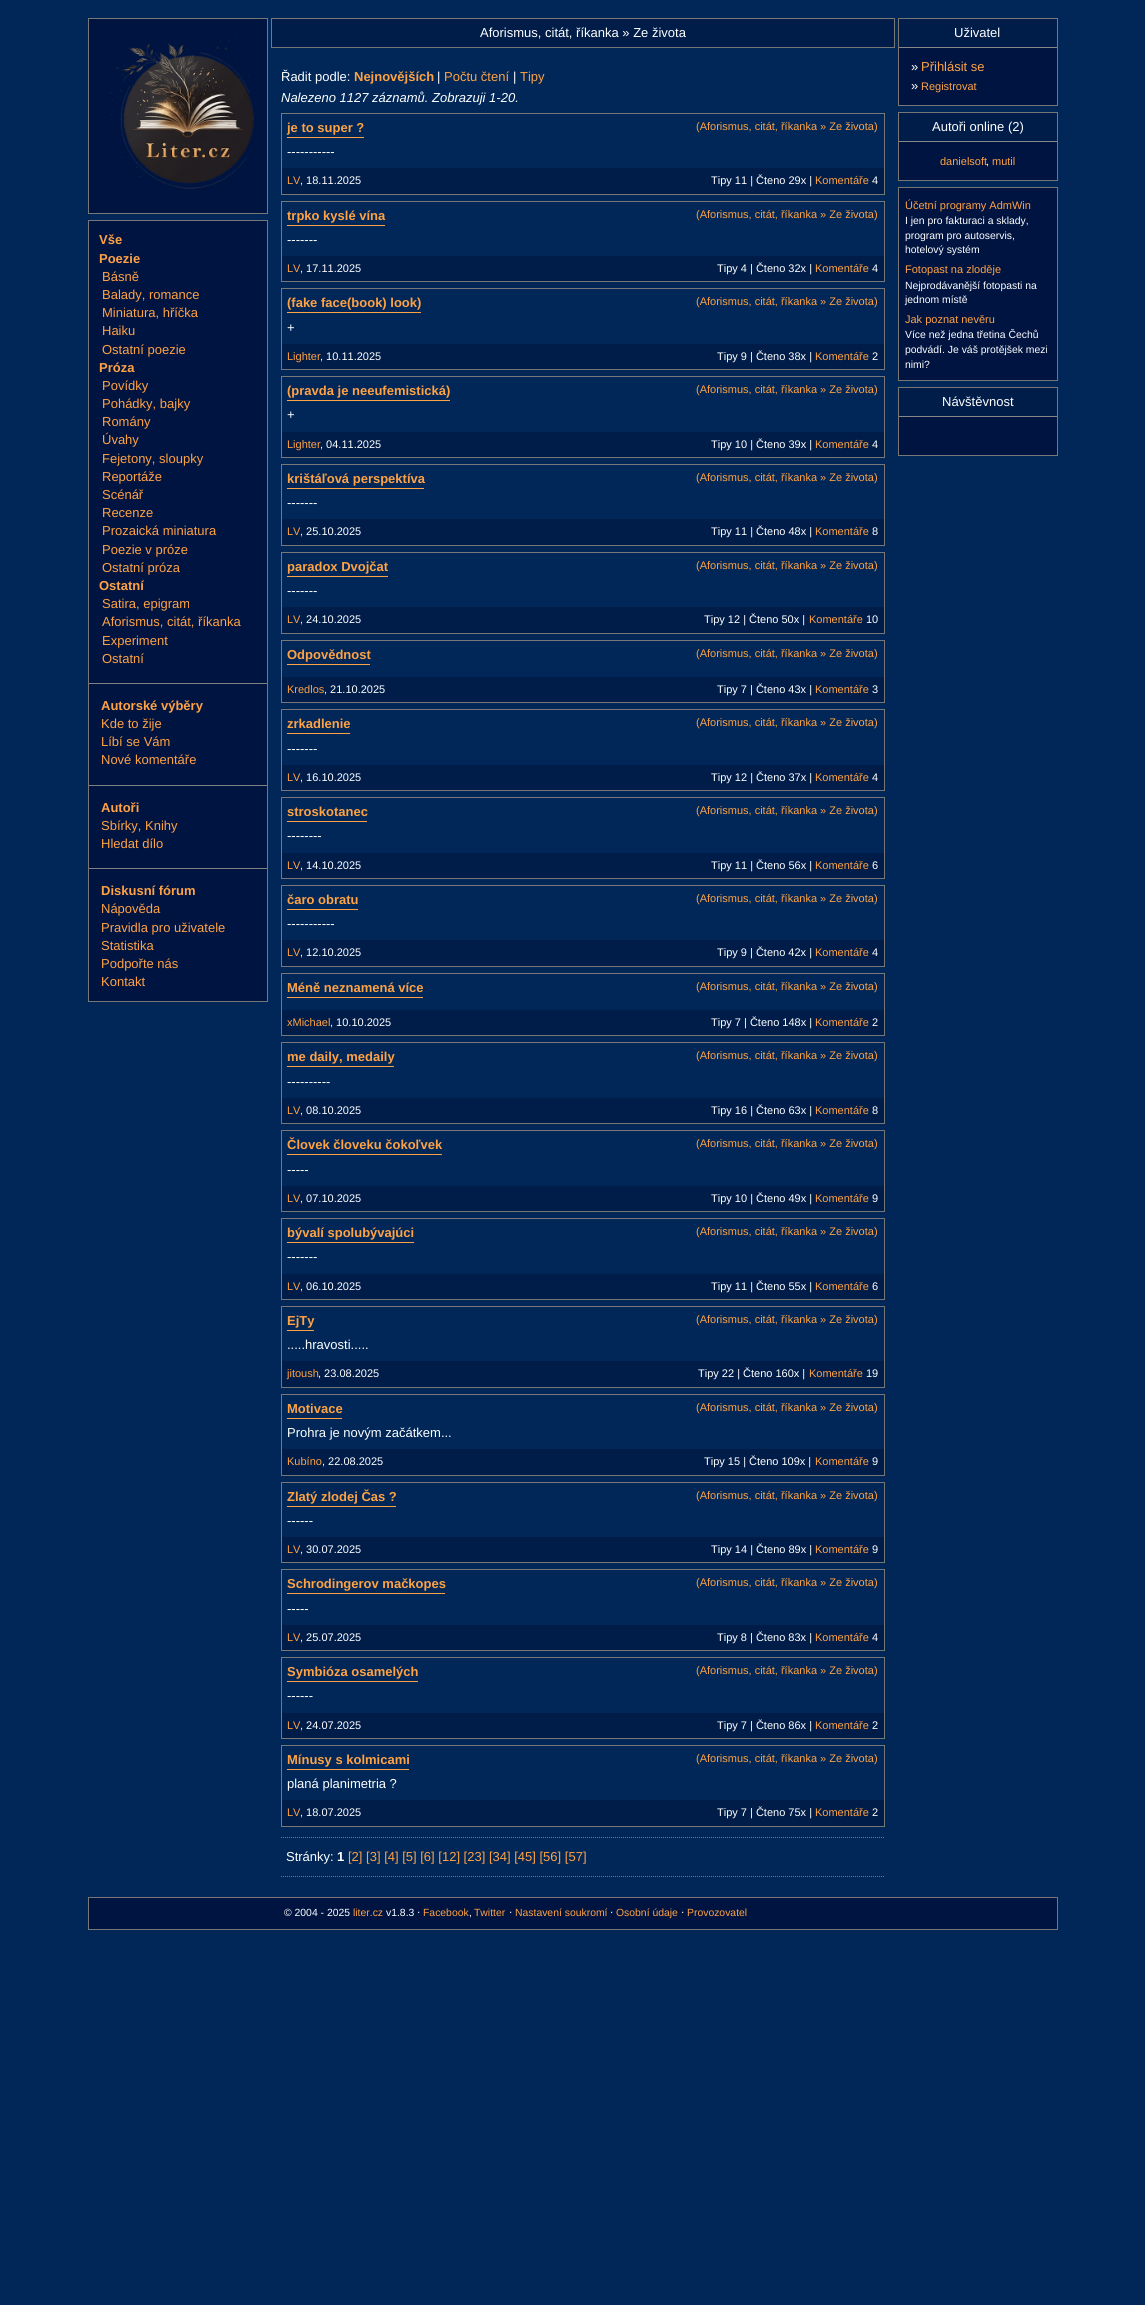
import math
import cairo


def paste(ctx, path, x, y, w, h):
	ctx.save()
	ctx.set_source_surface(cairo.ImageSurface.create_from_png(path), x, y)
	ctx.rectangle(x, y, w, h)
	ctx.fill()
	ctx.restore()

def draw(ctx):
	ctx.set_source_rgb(0, 0.153, 0.341)
	ctx.paint()
	ctx.set_source_rgb(0, 0.082, 0.255)
	ctx.rectangle(88.5, 18.5, 179, 195)
	ctx.fill_preserve()
	ctx.set_source_rgb(0.467, 0.467, 0.467)
	ctx.set_line_width(1)
	ctx.stroke()
	paste(ctx, 'media/1.png', 107, 37, 154, 152)
	ctx.set_source_rgb(0, 0.082, 0.255)
	ctx.rectangle(88.5, 220.5, 179, 781)
	ctx.fill_preserve()
	ctx.set_source_rgb(0.467, 0.467, 0.467)
	ctx.stroke()
	ctx.select_font_face('Liberation Sans', cairo.FONT_SLANT_NORMAL, cairo.FONT_WEIGHT_BOLD)
	ctx.set_font_size(13)
	ctx.set_source_rgb(1, 0.635, 0.267)
	ctx.move_to(99, 244)
	ctx.show_text('Vše')
	ctx.move_to(99, 263)
	ctx.show_text('Poezie')
	ctx.select_font_face('Liberation Sans')
	for x, y, s in [
		(102, 281, 'Básně'),
		(102, 299, 'Balady, romance'),
		(102, 317, 'Miniatura, hříčka'),
		(102, 335, 'Haiku'),
		(102, 354, 'Ostatní poezie'),
	]:
		ctx.move_to(x, y)
		ctx.show_text(s)
	ctx.select_font_face('Liberation Sans', cairo.FONT_SLANT_NORMAL, cairo.FONT_WEIGHT_BOLD)
	ctx.move_to(99, 372)
	ctx.show_text('Próza')
	ctx.select_font_face('Liberation Sans')
	for x, y, s in [
		(102, 390, 'Povídky'),
		(102, 408, 'Pohádky, bajky'),
		(102, 426, 'Romány'),
		(102, 444, 'Úvahy'),
		(102, 463, 'Fejetony, sloupky'),
		(102, 481, 'Reportáže'),
		(102, 499, 'Scénář'),
		(102, 517, 'Recenze'),
		(102, 535, 'Prozaická miniatura'),
		(102, 554, 'Poezie v próze'),
		(102, 572, 'Ostatní próza'),
	]:
		ctx.move_to(x, y)
		ctx.show_text(s)
	ctx.select_font_face('Liberation Sans', cairo.FONT_SLANT_NORMAL, cairo.FONT_WEIGHT_BOLD)
	ctx.move_to(99, 590)
	ctx.show_text('Ostatní')
	ctx.select_font_face('Liberation Sans')
	for x, y, s in [
		(102, 608, 'Satira, epigram'),
		(102, 626, 'Aforismus, citát, říkanka'),
		(102, 645, 'Experiment'),
		(102, 663, 'Ostatní'),
	]:
		ctx.move_to(x, y)
		ctx.show_text(s)
	ctx.set_source_rgb(0.502, 0.502, 0.502)
	ctx.rectangle(89, 683, 178, 1)
	ctx.fill()
	ctx.select_font_face('Liberation Sans', cairo.FONT_SLANT_NORMAL, cairo.FONT_WEIGHT_BOLD)
	ctx.set_source_rgb(1, 0.635, 0.267)
	ctx.move_to(101, 710)
	ctx.show_text('Autorské výběry')
	ctx.select_font_face('Liberation Sans')
	for x, y, s in [
		(101, 728, 'Kde to žije'),
		(101, 746, 'Líbí se Vám'),
		(101, 764, 'Nové komentáře'),
	]:
		ctx.move_to(x, y)
		ctx.show_text(s)
	ctx.set_source_rgb(0.502, 0.502, 0.502)
	ctx.rectangle(89, 785, 178, 1)
	ctx.fill()
	ctx.select_font_face('Liberation Sans', cairo.FONT_SLANT_NORMAL, cairo.FONT_WEIGHT_BOLD)
	ctx.set_source_rgb(1, 0.635, 0.267)
	ctx.move_to(101, 812)
	ctx.show_text('Autoři')
	ctx.select_font_face('Liberation Sans')
	ctx.move_to(101, 830)
	ctx.show_text('Sbírky, Knihy')
	ctx.move_to(101, 848)
	ctx.show_text('Hledat dílo')
	ctx.set_source_rgb(0.502, 0.502, 0.502)
	ctx.rectangle(89, 868, 178, 1)
	ctx.fill()
	ctx.select_font_face('Liberation Sans', cairo.FONT_SLANT_NORMAL, cairo.FONT_WEIGHT_BOLD)
	ctx.set_source_rgb(1, 0.635, 0.267)
	ctx.move_to(101, 895)
	ctx.show_text('Diskusní fórum')
	ctx.select_font_face('Liberation Sans')
	for x, y, s in [
		(101, 913, 'Nápověda'),
		(101, 932, 'Pravidla pro uživatele'),
		(101, 950, 'Statistika'),
		(101, 968, 'Podpořte nás'),
		(101, 986, 'Kontakt'),
	]:
		ctx.move_to(x, y)
		ctx.show_text(s)
	ctx.set_source_rgb(0, 0.114, 0.286)
	ctx.rectangle(271.5, 18.5, 623, 29)
	ctx.fill_preserve()
	ctx.set_source_rgb(0.467, 0.467, 0.467)
	ctx.stroke()
	ctx.set_source_rgb(1, 1, 1)
	ctx.move_to(480, 37)
	ctx.show_text('Aforismus, citát, říkanka » Ze života')
	ctx.move_to(281, 81)
	ctx.show_text('Řadit podle:')
	ctx.select_font_face('Liberation Sans', cairo.FONT_SLANT_NORMAL, cairo.FONT_WEIGHT_BOLD)
	ctx.set_source_rgb(1, 0.635, 0.267)
	ctx.move_to(354, 81)
	ctx.show_text('Nejnovějších')
	ctx.select_font_face('Liberation Sans')
	ctx.set_source_rgb(1, 1, 1)
	ctx.move_to(437, 81)
	ctx.show_text('|')
	ctx.set_source_rgb(1, 0.635, 0.267)
	ctx.move_to(444, 81)
	ctx.show_text('Počtu čtení')
	ctx.set_source_rgb(1, 1, 1)
	ctx.move_to(513, 81)
	ctx.show_text('|')
	ctx.set_source_rgb(1, 0.635, 0.267)
	ctx.move_to(520, 81)
	ctx.show_text('Tipy')
	ctx.select_font_face('Liberation Sans', cairo.FONT_SLANT_ITALIC)
	ctx.set_source_rgb(1, 1, 1)
	ctx.move_to(281, 102)
	ctx.show_text('Nalezeno 1127 záznamů. Zobrazuji 1-20.')
	ctx.rectangle(281.5, 113.5, 603, 81)
	ctx.set_source_rgb(0.467, 0.467, 0.467)
	ctx.stroke()
	ctx.select_font_face('Liberation Sans', cairo.FONT_SLANT_NORMAL, cairo.FONT_WEIGHT_BOLD)
	ctx.set_source_rgb(1, 0.635, 0.267)
	ctx.move_to(287, 132)
	ctx.show_text('je to super ?')
	ctx.rectangle(287, 137, 77, 1)
	ctx.fill()
	ctx.select_font_face('Liberation Sans')
	ctx.set_font_size(11)
	ctx.move_to(696, 130)
	ctx.show_text('(Aforismus, citát, říkanka » Ze života)')
	ctx.set_font_size(13)
	ctx.set_source_rgb(1, 1, 1)
	ctx.move_to(287, 156)
	ctx.show_text('-----------')
	ctx.set_source_rgb(0, 0.114, 0.286)
	ctx.rectangle(282, 168, 602, 26)
	ctx.fill()
	ctx.set_font_size(11)
	ctx.set_source_rgb(1, 0.635, 0.267)
	ctx.move_to(287, 184)
	ctx.show_text('LV')
	ctx.set_source_rgb(1, 1, 1)
	ctx.move_to(300, 184)
	ctx.show_text(', 18.11.2025')
	ctx.move_to(711, 184)
	ctx.show_text('Tipy 11 | Čteno 29x |')
	ctx.set_source_rgb(1, 0.635, 0.267)
	ctx.move_to(815, 184)
	ctx.show_text('Komentáře')
	ctx.set_source_rgb(1, 1, 1)
	ctx.move_to(872, 184)
	ctx.show_text('4')
	ctx.rectangle(281.5, 201.5, 603, 80)
	ctx.set_source_rgb(0.467, 0.467, 0.467)
	ctx.stroke()
	ctx.select_font_face('Liberation Sans', cairo.FONT_SLANT_NORMAL, cairo.FONT_WEIGHT_BOLD)
	ctx.set_font_size(13)
	ctx.set_source_rgb(1, 0.635, 0.267)
	ctx.move_to(287, 220)
	ctx.show_text('trpko kyslé vína')
	ctx.rectangle(287, 225, 98, 1)
	ctx.fill()
	ctx.select_font_face('Liberation Sans')
	ctx.set_font_size(11)
	ctx.move_to(696, 218)
	ctx.show_text('(Aforismus, citát, říkanka » Ze života)')
	ctx.set_font_size(13)
	ctx.set_source_rgb(1, 1, 1)
	ctx.move_to(287, 244)
	ctx.show_text('-------')
	ctx.set_source_rgb(0, 0.114, 0.286)
	ctx.rectangle(282, 256, 602, 25)
	ctx.fill()
	ctx.set_font_size(11)
	ctx.set_source_rgb(1, 0.635, 0.267)
	ctx.move_to(287, 272)
	ctx.show_text('LV')
	ctx.set_source_rgb(1, 1, 1)
	ctx.move_to(300, 272)
	ctx.show_text(', 17.11.2025')
	ctx.move_to(717, 272)
	ctx.show_text('Tipy 4 | Čteno 32x |')
	ctx.set_source_rgb(1, 0.635, 0.267)
	ctx.move_to(815, 272)
	ctx.show_text('Komentáře')
	ctx.set_source_rgb(1, 1, 1)
	ctx.move_to(872, 272)
	ctx.show_text('4')
	ctx.rectangle(281.5, 288.5, 603, 81)
	ctx.set_source_rgb(0.467, 0.467, 0.467)
	ctx.stroke()
	ctx.select_font_face('Liberation Sans', cairo.FONT_SLANT_NORMAL, cairo.FONT_WEIGHT_BOLD)
	ctx.set_font_size(13)
	ctx.set_source_rgb(1, 0.635, 0.267)
	ctx.move_to(287, 307)
	ctx.show_text('(fake face(book) look)')
	ctx.rectangle(287, 312, 134, 1)
	ctx.fill()
	ctx.select_font_face('Liberation Sans')
	ctx.set_font_size(11)
	ctx.move_to(696, 305)
	ctx.show_text('(Aforismus, citát, říkanka » Ze života)')
	ctx.set_font_size(13)
	ctx.set_source_rgb(1, 1, 1)
	ctx.move_to(287, 332)
	ctx.show_text('+')
	ctx.set_source_rgb(0, 0.114, 0.286)
	ctx.rectangle(282, 344, 602, 25)
	ctx.fill()
	ctx.set_font_size(11)
	ctx.set_source_rgb(1, 0.635, 0.267)
	ctx.move_to(287, 360)
	ctx.show_text('Lighter')
	ctx.set_source_rgb(1, 1, 1)
	ctx.move_to(320, 360)
	ctx.show_text(', 10.11.2025')
	ctx.move_to(717, 360)
	ctx.show_text('Tipy 9 | Čteno 38x |')
	ctx.set_source_rgb(1, 0.635, 0.267)
	ctx.move_to(815, 360)
	ctx.show_text('Komentáře')
	ctx.set_source_rgb(1, 1, 1)
	ctx.move_to(872, 360)
	ctx.show_text('2')
	ctx.rectangle(281.5, 376.5, 603, 81)
	ctx.set_source_rgb(0.467, 0.467, 0.467)
	ctx.stroke()
	ctx.select_font_face('Liberation Sans', cairo.FONT_SLANT_NORMAL, cairo.FONT_WEIGHT_BOLD)
	ctx.set_font_size(13)
	ctx.set_source_rgb(1, 0.635, 0.267)
	ctx.move_to(287, 395)
	ctx.show_text('(pravda je neeufemistická)')
	ctx.rectangle(287, 400, 163, 1)
	ctx.fill()
	ctx.select_font_face('Liberation Sans')
	ctx.set_font_size(11)
	ctx.move_to(696, 393)
	ctx.show_text('(Aforismus, citát, říkanka » Ze života)')
	ctx.set_font_size(13)
	ctx.set_source_rgb(1, 1, 1)
	ctx.move_to(287, 419)
	ctx.show_text('+')
	ctx.set_source_rgb(0, 0.114, 0.286)
	ctx.rectangle(282, 432, 602, 25)
	ctx.fill()
	ctx.set_font_size(11)
	ctx.set_source_rgb(1, 0.635, 0.267)
	ctx.move_to(287, 448)
	ctx.show_text('Lighter')
	ctx.set_source_rgb(1, 1, 1)
	ctx.move_to(320, 448)
	ctx.show_text(', 04.11.2025')
	ctx.move_to(711, 448)
	ctx.show_text('Tipy 10 | Čteno 39x |')
	ctx.set_source_rgb(1, 0.635, 0.267)
	ctx.move_to(815, 448)
	ctx.show_text('Komentáře')
	ctx.set_source_rgb(1, 1, 1)
	ctx.move_to(872, 448)
	ctx.show_text('4')
	ctx.rectangle(281.5, 464.5, 603, 81)
	ctx.set_source_rgb(0.467, 0.467, 0.467)
	ctx.stroke()
	ctx.select_font_face('Liberation Sans', cairo.FONT_SLANT_NORMAL, cairo.FONT_WEIGHT_BOLD)
	ctx.set_font_size(13)
	ctx.set_source_rgb(1, 0.635, 0.267)
	ctx.move_to(287, 483)
	ctx.show_text('krištáľová perspektíva')
	ctx.rectangle(287, 488, 137, 1)
	ctx.fill()
	ctx.select_font_face('Liberation Sans')
	ctx.set_font_size(11)
	ctx.move_to(696, 481)
	ctx.show_text('(Aforismus, citát, říkanka » Ze života)')
	ctx.set_font_size(13)
	ctx.set_source_rgb(1, 1, 1)
	ctx.move_to(287, 507)
	ctx.show_text('-------')
	ctx.set_source_rgb(0, 0.114, 0.286)
	ctx.rectangle(282, 519, 602, 26)
	ctx.fill()
	ctx.set_font_size(11)
	ctx.set_source_rgb(1, 0.635, 0.267)
	ctx.move_to(287, 535)
	ctx.show_text('LV')
	ctx.set_source_rgb(1, 1, 1)
	ctx.move_to(300, 535)
	ctx.show_text(', 25.10.2025')
	ctx.move_to(711, 535)
	ctx.show_text('Tipy 11 | Čteno 48x |')
	ctx.set_source_rgb(1, 0.635, 0.267)
	ctx.move_to(815, 535)
	ctx.show_text('Komentáře')
	ctx.set_source_rgb(1, 1, 1)
	ctx.move_to(872, 535)
	ctx.show_text('8')
	ctx.rectangle(281.5, 552.5, 603, 81)
	ctx.set_source_rgb(0.467, 0.467, 0.467)
	ctx.stroke()
	ctx.select_font_face('Liberation Sans', cairo.FONT_SLANT_NORMAL, cairo.FONT_WEIGHT_BOLD)
	ctx.set_font_size(13)
	ctx.set_source_rgb(1, 0.635, 0.267)
	ctx.move_to(287, 571)
	ctx.show_text('paradox Dvojčat')
	ctx.rectangle(287, 576, 101, 1)
	ctx.fill()
	ctx.select_font_face('Liberation Sans')
	ctx.set_font_size(11)
	ctx.move_to(696, 569)
	ctx.show_text('(Aforismus, citát, říkanka » Ze života)')
	ctx.set_font_size(13)
	ctx.set_source_rgb(1, 1, 1)
	ctx.move_to(287, 595)
	ctx.show_text('-------')
	ctx.set_source_rgb(0, 0.114, 0.286)
	ctx.rectangle(282, 607, 602, 26)
	ctx.fill()
	ctx.set_font_size(11)
	ctx.set_source_rgb(1, 0.635, 0.267)
	ctx.move_to(287, 623)
	ctx.show_text('LV')
	ctx.set_source_rgb(1, 1, 1)
	ctx.move_to(300, 623)
	ctx.show_text(', 24.10.2025')
	ctx.move_to(704, 623)
	ctx.show_text('Tipy 12 | Čteno 50x |')
	ctx.set_source_rgb(1, 0.635, 0.267)
	ctx.move_to(809, 623)
	ctx.show_text('Komentáře')
	ctx.set_source_rgb(1, 1, 1)
	ctx.move_to(866, 623)
	ctx.show_text('10')
	ctx.rectangle(281.5, 640.5, 603, 62)
	ctx.set_source_rgb(0.467, 0.467, 0.467)
	ctx.stroke()
	ctx.select_font_face('Liberation Sans', cairo.FONT_SLANT_NORMAL, cairo.FONT_WEIGHT_BOLD)
	ctx.set_font_size(13)
	ctx.set_source_rgb(1, 0.635, 0.267)
	ctx.move_to(287, 659)
	ctx.show_text('Odpovědnost')
	ctx.rectangle(287, 664, 83, 1)
	ctx.fill()
	ctx.select_font_face('Liberation Sans')
	ctx.set_font_size(11)
	ctx.move_to(696, 657)
	ctx.show_text('(Aforismus, citát, říkanka » Ze života)')
	ctx.set_source_rgb(0, 0.114, 0.286)
	ctx.rectangle(282, 677, 602, 25)
	ctx.fill()
	ctx.set_source_rgb(1, 0.635, 0.267)
	ctx.move_to(287, 693)
	ctx.show_text('Kredlos')
	ctx.set_source_rgb(1, 1, 1)
	ctx.move_to(324, 693)
	ctx.show_text(', 21.10.2025')
	ctx.move_to(717, 693)
	ctx.show_text('Tipy 7 | Čteno 43x |')
	ctx.set_source_rgb(1, 0.635, 0.267)
	ctx.move_to(815, 693)
	ctx.show_text('Komentáře')
	ctx.set_source_rgb(1, 1, 1)
	ctx.move_to(872, 693)
	ctx.show_text('3')
	ctx.rectangle(281.5, 709.5, 603, 81)
	ctx.set_source_rgb(0.467, 0.467, 0.467)
	ctx.stroke()
	ctx.select_font_face('Liberation Sans', cairo.FONT_SLANT_NORMAL, cairo.FONT_WEIGHT_BOLD)
	ctx.set_font_size(13)
	ctx.set_source_rgb(1, 0.635, 0.267)
	ctx.move_to(287, 728)
	ctx.show_text('zrkadlenie')
	ctx.rectangle(287, 733, 63, 1)
	ctx.fill()
	ctx.select_font_face('Liberation Sans')
	ctx.set_font_size(11)
	ctx.move_to(696, 726)
	ctx.show_text('(Aforismus, citát, říkanka » Ze života)')
	ctx.set_font_size(13)
	ctx.set_source_rgb(1, 1, 1)
	ctx.move_to(287, 753)
	ctx.show_text('-------')
	ctx.set_source_rgb(0, 0.114, 0.286)
	ctx.rectangle(282, 765, 602, 25)
	ctx.fill()
	ctx.set_font_size(11)
	ctx.set_source_rgb(1, 0.635, 0.267)
	ctx.move_to(287, 781)
	ctx.show_text('LV')
	ctx.set_source_rgb(1, 1, 1)
	ctx.move_to(300, 781)
	ctx.show_text(', 16.10.2025')
	ctx.move_to(711, 781)
	ctx.show_text('Tipy 12 | Čteno 37x |')
	ctx.set_source_rgb(1, 0.635, 0.267)
	ctx.move_to(815, 781)
	ctx.show_text('Komentáře')
	ctx.set_source_rgb(1, 1, 1)
	ctx.move_to(872, 781)
	ctx.show_text('4')
	ctx.rectangle(281.5, 797.5, 603, 81)
	ctx.set_source_rgb(0.467, 0.467, 0.467)
	ctx.stroke()
	ctx.select_font_face('Liberation Sans', cairo.FONT_SLANT_NORMAL, cairo.FONT_WEIGHT_BOLD)
	ctx.set_font_size(13)
	ctx.set_source_rgb(1, 0.635, 0.267)
	ctx.move_to(287, 816)
	ctx.show_text('stroskotanec')
	ctx.rectangle(287, 821, 80, 1)
	ctx.fill()
	ctx.select_font_face('Liberation Sans')
	ctx.set_font_size(11)
	ctx.move_to(696, 814)
	ctx.show_text('(Aforismus, citát, říkanka » Ze života)')
	ctx.set_font_size(13)
	ctx.set_source_rgb(1, 1, 1)
	ctx.move_to(287, 840)
	ctx.show_text('--------')
	ctx.set_source_rgb(0, 0.114, 0.286)
	ctx.rectangle(282, 853, 602, 25)
	ctx.fill()
	ctx.set_font_size(11)
	ctx.set_source_rgb(1, 0.635, 0.267)
	ctx.move_to(287, 869)
	ctx.show_text('LV')
	ctx.set_source_rgb(1, 1, 1)
	ctx.move_to(300, 869)
	ctx.show_text(', 14.10.2025')
	ctx.move_to(711, 869)
	ctx.show_text('Tipy 11 | Čteno 56x |')
	ctx.set_source_rgb(1, 0.635, 0.267)
	ctx.move_to(815, 869)
	ctx.show_text('Komentáře')
	ctx.set_source_rgb(1, 1, 1)
	ctx.move_to(872, 869)
	ctx.show_text('6')
	ctx.rectangle(281.5, 885.5, 603, 81)
	ctx.set_source_rgb(0.467, 0.467, 0.467)
	ctx.stroke()
	ctx.select_font_face('Liberation Sans', cairo.FONT_SLANT_NORMAL, cairo.FONT_WEIGHT_BOLD)
	ctx.set_font_size(13)
	ctx.set_source_rgb(1, 0.635, 0.267)
	ctx.move_to(287, 904)
	ctx.show_text('čaro obratu')
	ctx.rectangle(287, 909, 71, 1)
	ctx.fill()
	ctx.select_font_face('Liberation Sans')
	ctx.set_font_size(11)
	ctx.move_to(696, 902)
	ctx.show_text('(Aforismus, citát, říkanka » Ze života)')
	ctx.set_font_size(13)
	ctx.set_source_rgb(1, 1, 1)
	ctx.move_to(287, 928)
	ctx.show_text('-----------')
	ctx.set_source_rgb(0, 0.114, 0.286)
	ctx.rectangle(282, 940, 602, 26)
	ctx.fill()
	ctx.set_font_size(11)
	ctx.set_source_rgb(1, 0.635, 0.267)
	ctx.move_to(287, 956)
	ctx.show_text('LV')
	ctx.set_source_rgb(1, 1, 1)
	ctx.move_to(300, 956)
	ctx.show_text(', 12.10.2025')
	ctx.move_to(717, 956)
	ctx.show_text('Tipy 9 | Čteno 42x |')
	ctx.set_source_rgb(1, 0.635, 0.267)
	ctx.move_to(815, 956)
	ctx.show_text('Komentáře')
	ctx.set_source_rgb(1, 1, 1)
	ctx.move_to(872, 956)
	ctx.show_text('4')
	ctx.rectangle(281.5, 973.5, 603, 62)
	ctx.set_source_rgb(0.467, 0.467, 0.467)
	ctx.stroke()
	ctx.select_font_face('Liberation Sans', cairo.FONT_SLANT_NORMAL, cairo.FONT_WEIGHT_BOLD)
	ctx.set_font_size(13)
	ctx.set_source_rgb(1, 0.635, 0.267)
	ctx.move_to(287, 992)
	ctx.show_text('Méně neznamená více')
	ctx.rectangle(287, 997, 136, 1)
	ctx.fill()
	ctx.select_font_face('Liberation Sans')
	ctx.set_font_size(11)
	ctx.move_to(696, 990)
	ctx.show_text('(Aforismus, citát, říkanka » Ze života)')
	ctx.set_source_rgb(0, 0.114, 0.286)
	ctx.rectangle(282, 1010, 602, 25)
	ctx.fill()
	ctx.set_source_rgb(1, 0.635, 0.267)
	ctx.move_to(287, 1026)
	ctx.show_text('xMichael')
	ctx.set_source_rgb(1, 1, 1)
	ctx.move_to(330, 1026)
	ctx.show_text(', 10.10.2025')
	ctx.move_to(711, 1026)
	ctx.show_text('Tipy 7 | Čteno 148x |')
	ctx.set_source_rgb(1, 0.635, 0.267)
	ctx.move_to(815, 1026)
	ctx.show_text('Komentáře')
	ctx.set_source_rgb(1, 1, 1)
	ctx.move_to(872, 1026)
	ctx.show_text('2')
	ctx.rectangle(281.5, 1042.5, 603, 81)
	ctx.set_source_rgb(0.467, 0.467, 0.467)
	ctx.stroke()
	ctx.select_font_face('Liberation Sans', cairo.FONT_SLANT_NORMAL, cairo.FONT_WEIGHT_BOLD)
	ctx.set_font_size(13)
	ctx.set_source_rgb(1, 0.635, 0.267)
	ctx.move_to(287, 1061)
	ctx.show_text('me daily, medaily')
	ctx.rectangle(287, 1066, 107, 1)
	ctx.fill()
	ctx.select_font_face('Liberation Sans')
	ctx.set_font_size(11)
	ctx.move_to(696, 1059)
	ctx.show_text('(Aforismus, citát, říkanka » Ze života)')
	ctx.set_font_size(13)
	ctx.set_source_rgb(1, 1, 1)
	ctx.move_to(287, 1086)
	ctx.show_text('----------')
	ctx.set_source_rgb(0, 0.114, 0.286)
	ctx.rectangle(282, 1098, 602, 25)
	ctx.fill()
	ctx.set_font_size(11)
	ctx.set_source_rgb(1, 0.635, 0.267)
	ctx.move_to(287, 1114)
	ctx.show_text('LV')
	ctx.set_source_rgb(1, 1, 1)
	ctx.move_to(300, 1114)
	ctx.show_text(', 08.10.2025')
	ctx.move_to(711, 1114)
	ctx.show_text('Tipy 16 | Čteno 63x |')
	ctx.set_source_rgb(1, 0.635, 0.267)
	ctx.move_to(815, 1114)
	ctx.show_text('Komentáře')
	ctx.set_source_rgb(1, 1, 1)
	ctx.move_to(872, 1114)
	ctx.show_text('8')
	ctx.rectangle(281.5, 1130.5, 603, 81)
	ctx.set_source_rgb(0.467, 0.467, 0.467)
	ctx.stroke()
	ctx.select_font_face('Liberation Sans', cairo.FONT_SLANT_NORMAL, cairo.FONT_WEIGHT_BOLD)
	ctx.set_font_size(13)
	ctx.set_source_rgb(1, 0.635, 0.267)
	ctx.move_to(287, 1149)
	ctx.show_text('Človek človeku čokoľvek')
	ctx.rectangle(287, 1154, 155, 1)
	ctx.fill()
	ctx.select_font_face('Liberation Sans')
	ctx.set_font_size(11)
	ctx.move_to(696, 1147)
	ctx.show_text('(Aforismus, citát, říkanka » Ze života)')
	ctx.set_font_size(13)
	ctx.set_source_rgb(1, 1, 1)
	ctx.move_to(287, 1174)
	ctx.show_text('-----')
	ctx.set_source_rgb(0, 0.114, 0.286)
	ctx.rectangle(282, 1186, 602, 25)
	ctx.fill()
	ctx.set_font_size(11)
	ctx.set_source_rgb(1, 0.635, 0.267)
	ctx.move_to(287, 1202)
	ctx.show_text('LV')
	ctx.set_source_rgb(1, 1, 1)
	ctx.move_to(300, 1202)
	ctx.show_text(', 07.10.2025')
	ctx.move_to(711, 1202)
	ctx.show_text('Tipy 10 | Čteno 49x |')
	ctx.set_source_rgb(1, 0.635, 0.267)
	ctx.move_to(815, 1202)
	ctx.show_text('Komentáře')
	ctx.set_source_rgb(1, 1, 1)
	ctx.move_to(872, 1202)
	ctx.show_text('9')
	ctx.rectangle(281.5, 1218.5, 603, 81)
	ctx.set_source_rgb(0.467, 0.467, 0.467)
	ctx.stroke()
	ctx.select_font_face('Liberation Sans', cairo.FONT_SLANT_NORMAL, cairo.FONT_WEIGHT_BOLD)
	ctx.set_font_size(13)
	ctx.set_source_rgb(1, 0.635, 0.267)
	ctx.move_to(287, 1237)
	ctx.show_text('bývalí spolubývajúci')
	ctx.rectangle(287, 1242, 127, 1)
	ctx.fill()
	ctx.select_font_face('Liberation Sans')
	ctx.set_font_size(11)
	ctx.move_to(696, 1235)
	ctx.show_text('(Aforismus, citát, říkanka » Ze života)')
	ctx.set_font_size(13)
	ctx.set_source_rgb(1, 1, 1)
	ctx.move_to(287, 1261)
	ctx.show_text('-------')
	ctx.set_source_rgb(0, 0.114, 0.286)
	ctx.rectangle(282, 1274, 602, 25)
	ctx.fill()
	ctx.set_font_size(11)
	ctx.set_source_rgb(1, 0.635, 0.267)
	ctx.move_to(287, 1290)
	ctx.show_text('LV')
	ctx.set_source_rgb(1, 1, 1)
	ctx.move_to(300, 1290)
	ctx.show_text(', 06.10.2025')
	ctx.move_to(711, 1290)
	ctx.show_text('Tipy 11 | Čteno 55x |')
	ctx.set_source_rgb(1, 0.635, 0.267)
	ctx.move_to(815, 1290)
	ctx.show_text('Komentáře')
	ctx.set_source_rgb(1, 1, 1)
	ctx.move_to(872, 1290)
	ctx.show_text('6')
	ctx.rectangle(281.5, 1306.5, 603, 81)
	ctx.set_source_rgb(0.467, 0.467, 0.467)
	ctx.stroke()
	ctx.select_font_face('Liberation Sans', cairo.FONT_SLANT_NORMAL, cairo.FONT_WEIGHT_BOLD)
	ctx.set_font_size(13)
	ctx.set_source_rgb(1, 0.635, 0.267)
	ctx.move_to(287, 1325)
	ctx.show_text('EjTy')
	ctx.rectangle(287, 1330, 27, 1)
	ctx.fill()
	ctx.select_font_face('Liberation Sans')
	ctx.set_font_size(11)
	ctx.move_to(696, 1323)
	ctx.show_text('(Aforismus, citát, říkanka » Ze života)')
	ctx.set_font_size(13)
	ctx.set_source_rgb(1, 1, 1)
	ctx.move_to(287, 1349)
	ctx.show_text('.....hravosti.....')
	ctx.set_source_rgb(0, 0.114, 0.286)
	ctx.rectangle(282, 1361, 602, 26)
	ctx.fill()
	ctx.set_font_size(11)
	ctx.set_source_rgb(1, 0.635, 0.267)
	ctx.move_to(287, 1377)
	ctx.show_text('jitoush')
	ctx.set_source_rgb(1, 1, 1)
	ctx.move_to(318, 1377)
	ctx.show_text(', 23.08.2025')
	ctx.move_to(698, 1377)
	ctx.show_text('Tipy 22 | Čteno 160x |')
	ctx.set_source_rgb(1, 0.635, 0.267)
	ctx.move_to(809, 1377)
	ctx.show_text('Komentáře')
	ctx.set_source_rgb(1, 1, 1)
	ctx.move_to(866, 1377)
	ctx.show_text('19')
	ctx.rectangle(281.5, 1394.5, 603, 81)
	ctx.set_source_rgb(0.467, 0.467, 0.467)
	ctx.stroke()
	ctx.select_font_face('Liberation Sans', cairo.FONT_SLANT_NORMAL, cairo.FONT_WEIGHT_BOLD)
	ctx.set_font_size(13)
	ctx.set_source_rgb(1, 0.635, 0.267)
	ctx.move_to(287, 1413)
	ctx.show_text('Motivace')
	ctx.rectangle(287, 1418, 55, 1)
	ctx.fill()
	ctx.select_font_face('Liberation Sans')
	ctx.set_font_size(11)
	ctx.move_to(696, 1411)
	ctx.show_text('(Aforismus, citát, říkanka » Ze života)')
	ctx.set_font_size(13)
	ctx.set_source_rgb(1, 1, 1)
	ctx.move_to(287, 1437)
	ctx.show_text('Prohra je novým začátkem...')
	ctx.set_source_rgb(0, 0.114, 0.286)
	ctx.rectangle(282, 1449, 602, 26)
	ctx.fill()
	ctx.set_font_size(11)
	ctx.set_source_rgb(1, 0.635, 0.267)
	ctx.move_to(287, 1465)
	ctx.show_text('Kubíno')
	ctx.set_source_rgb(1, 1, 1)
	ctx.move_to(322, 1465)
	ctx.show_text(', 22.08.2025')
	ctx.move_to(704, 1465)
	ctx.show_text('Tipy 15 | Čteno 109x |')
	ctx.set_source_rgb(1, 0.635, 0.267)
	ctx.move_to(815, 1465)
	ctx.show_text('Komentáře')
	ctx.set_source_rgb(1, 1, 1)
	ctx.move_to(872, 1465)
	ctx.show_text('9')
	ctx.rectangle(281.5, 1482.5, 603, 80)
	ctx.set_source_rgb(0.467, 0.467, 0.467)
	ctx.stroke()
	ctx.select_font_face('Liberation Sans', cairo.FONT_SLANT_NORMAL, cairo.FONT_WEIGHT_BOLD)
	ctx.set_font_size(13)
	ctx.set_source_rgb(1, 0.635, 0.267)
	ctx.move_to(287, 1501)
	ctx.show_text('Zlatý zlodej Čas ?')
	ctx.rectangle(287, 1506, 109, 1)
	ctx.fill()
	ctx.select_font_face('Liberation Sans')
	ctx.set_font_size(11)
	ctx.move_to(696, 1499)
	ctx.show_text('(Aforismus, citát, říkanka » Ze života)')
	ctx.set_font_size(13)
	ctx.set_source_rgb(1, 1, 1)
	ctx.move_to(287, 1525)
	ctx.show_text('------')
	ctx.set_source_rgb(0, 0.114, 0.286)
	ctx.rectangle(282, 1537, 602, 25)
	ctx.fill()
	ctx.set_font_size(11)
	ctx.set_source_rgb(1, 0.635, 0.267)
	ctx.move_to(287, 1553)
	ctx.show_text('LV')
	ctx.set_source_rgb(1, 1, 1)
	ctx.move_to(300, 1553)
	ctx.show_text(', 30.07.2025')
	ctx.move_to(711, 1553)
	ctx.show_text('Tipy 14 | Čteno 89x |')
	ctx.set_source_rgb(1, 0.635, 0.267)
	ctx.move_to(815, 1553)
	ctx.show_text('Komentáře')
	ctx.set_source_rgb(1, 1, 1)
	ctx.move_to(872, 1553)
	ctx.show_text('9')
	ctx.rectangle(281.5, 1569.5, 603, 81)
	ctx.set_source_rgb(0.467, 0.467, 0.467)
	ctx.stroke()
	ctx.select_font_face('Liberation Sans', cairo.FONT_SLANT_NORMAL, cairo.FONT_WEIGHT_BOLD)
	ctx.set_font_size(13)
	ctx.set_source_rgb(1, 0.635, 0.267)
	ctx.move_to(287, 1588)
	ctx.show_text('Schrodingerov mačkopes')
	ctx.rectangle(287, 1593, 158, 1)
	ctx.fill()
	ctx.select_font_face('Liberation Sans')
	ctx.set_font_size(11)
	ctx.move_to(696, 1586)
	ctx.show_text('(Aforismus, citát, říkanka » Ze života)')
	ctx.set_font_size(13)
	ctx.set_source_rgb(1, 1, 1)
	ctx.move_to(287, 1613)
	ctx.show_text('-----')
	ctx.set_source_rgb(0, 0.114, 0.286)
	ctx.rectangle(282, 1625, 602, 25)
	ctx.fill()
	ctx.set_font_size(11)
	ctx.set_source_rgb(1, 0.635, 0.267)
	ctx.move_to(287, 1641)
	ctx.show_text('LV')
	ctx.set_source_rgb(1, 1, 1)
	ctx.move_to(300, 1641)
	ctx.show_text(', 25.07.2025')
	ctx.move_to(717, 1641)
	ctx.show_text('Tipy 8 | Čteno 83x |')
	ctx.set_source_rgb(1, 0.635, 0.267)
	ctx.move_to(815, 1641)
	ctx.show_text('Komentáře')
	ctx.set_source_rgb(1, 1, 1)
	ctx.move_to(872, 1641)
	ctx.show_text('4')
	ctx.rectangle(281.5, 1657.5, 603, 81)
	ctx.set_source_rgb(0.467, 0.467, 0.467)
	ctx.stroke()
	ctx.select_font_face('Liberation Sans', cairo.FONT_SLANT_NORMAL, cairo.FONT_WEIGHT_BOLD)
	ctx.set_font_size(13)
	ctx.set_source_rgb(1, 0.635, 0.267)
	ctx.move_to(287, 1676)
	ctx.show_text('Symbióza osamelých')
	ctx.rectangle(287, 1681, 131, 1)
	ctx.fill()
	ctx.select_font_face('Liberation Sans')
	ctx.set_font_size(11)
	ctx.move_to(696, 1674)
	ctx.show_text('(Aforismus, citát, říkanka » Ze života)')
	ctx.set_font_size(13)
	ctx.set_source_rgb(1, 1, 1)
	ctx.move_to(287, 1700)
	ctx.show_text('------')
	ctx.set_source_rgb(0, 0.114, 0.286)
	ctx.rectangle(282, 1713, 602, 25)
	ctx.fill()
	ctx.set_font_size(11)
	ctx.set_source_rgb(1, 0.635, 0.267)
	ctx.move_to(287, 1729)
	ctx.show_text('LV')
	ctx.set_source_rgb(1, 1, 1)
	ctx.move_to(300, 1729)
	ctx.show_text(', 24.07.2025')
	ctx.move_to(717, 1729)
	ctx.show_text('Tipy 7 | Čteno 86x |')
	ctx.set_source_rgb(1, 0.635, 0.267)
	ctx.move_to(815, 1729)
	ctx.show_text('Komentáře')
	ctx.set_source_rgb(1, 1, 1)
	ctx.move_to(872, 1729)
	ctx.show_text('2')
	ctx.rectangle(281.5, 1745.5, 603, 81)
	ctx.set_source_rgb(0.467, 0.467, 0.467)
	ctx.stroke()
	ctx.select_font_face('Liberation Sans', cairo.FONT_SLANT_NORMAL, cairo.FONT_WEIGHT_BOLD)
	ctx.set_font_size(13)
	ctx.set_source_rgb(1, 0.635, 0.267)
	ctx.move_to(287, 1764)
	ctx.show_text('Mínusy s kolmicami')
	ctx.rectangle(287, 1769, 122, 1)
	ctx.fill()
	ctx.select_font_face('Liberation Sans')
	ctx.set_font_size(11)
	ctx.move_to(696, 1762)
	ctx.show_text('(Aforismus, citát, říkanka » Ze života)')
	ctx.set_font_size(13)
	ctx.set_source_rgb(1, 1, 1)
	ctx.move_to(287, 1788)
	ctx.show_text('planá planimetria ?')
	ctx.set_source_rgb(0, 0.114, 0.286)
	ctx.rectangle(282, 1800, 602, 26)
	ctx.fill()
	ctx.set_font_size(11)
	ctx.set_source_rgb(1, 0.635, 0.267)
	ctx.move_to(287, 1816)
	ctx.show_text('LV')
	ctx.set_source_rgb(1, 1, 1)
	ctx.move_to(300, 1816)
	ctx.show_text(', 18.07.2025')
	ctx.move_to(717, 1816)
	ctx.show_text('Tipy 7 | Čteno 75x |')
	ctx.set_source_rgb(1, 0.635, 0.267)
	ctx.move_to(815, 1816)
	ctx.show_text('Komentáře')
	ctx.set_source_rgb(1, 1, 1)
	ctx.move_to(872, 1816)
	ctx.show_text('2')
	ctx.new_path()
	ctx.move_to(281, 1837.5)
	ctx.line_to(885, 1837.5)
	ctx.set_source_rgb(0.467, 0.467, 0.467)
	ctx.set_dash([1, 1])
	ctx.stroke()
	ctx.new_path()
	ctx.move_to(281, 1876.5)
	ctx.line_to(885, 1876.5)
	ctx.stroke()
	ctx.set_font_size(13)
	ctx.set_source_rgb(1, 1, 1)
	ctx.move_to(286, 1861)
	ctx.show_text('Stránky:')
	ctx.select_font_face('Liberation Sans', cairo.FONT_SLANT_NORMAL, cairo.FONT_WEIGHT_BOLD)
	ctx.move_to(337, 1861)
	ctx.show_text('1')
	ctx.select_font_face('Liberation Sans')
	ctx.set_source_rgb(1, 0.635, 0.267)
	ctx.move_to(348, 1861)
	ctx.show_text('[2] [3] [4] [5] [6] [12] [23] [34] [45] [56] [57]')
	ctx.set_source_rgb(0, 0.082, 0.255)
	ctx.rectangle(899, 48, 158, 57)
	ctx.fill()
	ctx.rectangle(898.5, 18.5, 159, 87)
	ctx.set_source_rgb(0.467, 0.467, 0.467)
	ctx.set_dash([])
	ctx.stroke()
	ctx.set_source_rgb(0, 0.114, 0.286)
	ctx.rectangle(899, 19, 158, 28)
	ctx.fill()
	ctx.set_source_rgb(0.533, 0.533, 0.533)
	ctx.rectangle(899, 47, 158, 1)
	ctx.fill()
	ctx.set_source_rgb(1, 1, 1)
	ctx.move_to(954, 37)
	ctx.show_text('Uživatel')
	ctx.move_to(911, 71)
	ctx.show_text('»')
	ctx.set_source_rgb(1, 0.635, 0.267)
	ctx.move_to(921, 71)
	ctx.show_text('Přihlásit se')
	ctx.set_source_rgb(1, 1, 1)
	ctx.move_to(911, 90)
	ctx.show_text('»')
	ctx.set_font_size(11)
	ctx.set_source_rgb(1, 0.635, 0.267)
	ctx.move_to(921, 90)
	ctx.show_text('Registrovat')
	ctx.set_source_rgb(0, 0.082, 0.255)
	ctx.rectangle(899, 142, 158, 38)
	ctx.fill()
	ctx.rectangle(898.5, 112.5, 159, 68)
	ctx.set_source_rgb(0.467, 0.467, 0.467)
	ctx.stroke()
	ctx.set_source_rgb(0, 0.114, 0.286)
	ctx.rectangle(899, 113, 158, 28)
	ctx.fill()
	ctx.set_source_rgb(0.533, 0.533, 0.533)
	ctx.rectangle(899, 141, 158, 1)
	ctx.fill()
	ctx.set_font_size(13)
	ctx.set_source_rgb(1, 1, 1)
	ctx.move_to(932, 131)
	ctx.show_text('Autoři online (2)')
	ctx.set_font_size(11)
	ctx.set_source_rgb(1, 0.635, 0.267)
	ctx.move_to(940, 165)
	ctx.show_text('danielsoft')
	ctx.set_source_rgb(1, 1, 1)
	ctx.move_to(986, 165)
	ctx.show_text(',')
	ctx.set_source_rgb(1, 0.635, 0.267)
	ctx.move_to(992, 165)
	ctx.show_text('mutil')
	ctx.set_source_rgb(0, 0.082, 0.255)
	ctx.rectangle(898.5, 187.5, 159, 193)
	ctx.fill_preserve()
	ctx.set_source_rgb(0.467, 0.467, 0.467)
	ctx.stroke()
	ctx.set_source_rgb(1, 0.635, 0.267)
	ctx.move_to(905, 209)
	ctx.show_text('Účetní programy AdmWin')
	ctx.set_font_size(10.4)
	ctx.set_source_rgb(1, 1, 1)
	for x, y, s in [
		(905, 224, 'I jen pro fakturaci a sklady,'),
		(905, 239, 'program pro autoservis,'),
		(905, 253, 'hotelový systém'),
	]:
		ctx.move_to(x, y)
		ctx.show_text(s)
	ctx.set_font_size(11)
	ctx.set_source_rgb(1, 0.635, 0.267)
	ctx.move_to(905, 273)
	ctx.show_text('Fotopast na zloděje')
	ctx.set_font_size(10.4)
	ctx.set_source_rgb(1, 1, 1)
	ctx.move_to(905, 289)
	ctx.show_text('Nejprodávanější fotopasti na')
	ctx.move_to(905, 303)
	ctx.show_text('jednom místě')
	ctx.set_font_size(11)
	ctx.set_source_rgb(1, 0.635, 0.267)
	ctx.move_to(905, 323)
	ctx.show_text('Jak poznat nevěru')
	ctx.set_font_size(10.4)
	ctx.set_source_rgb(1, 1, 1)
	for x, y, s in [
		(905, 338, 'Více než jedna třetina Čechů'),
		(905, 353, 'podvádí. Je váš protějšek mezi'),
		(905, 368, 'nimi?'),
	]:
		ctx.move_to(x, y)
		ctx.show_text(s)
	ctx.set_source_rgb(0, 0.082, 0.255)
	ctx.rectangle(899, 417, 158, 38)
	ctx.fill()
	ctx.rectangle(898.5, 387.5, 159, 68)
	ctx.set_source_rgb(0.467, 0.467, 0.467)
	ctx.stroke()
	ctx.set_source_rgb(0, 0.114, 0.286)
	ctx.rectangle(899, 388, 158, 28)
	ctx.fill()
	ctx.set_source_rgb(0.533, 0.533, 0.533)
	ctx.rectangle(899, 416, 158, 1)
	ctx.fill()
	ctx.set_font_size(13)
	ctx.set_source_rgb(1, 1, 1)
	ctx.move_to(942, 406)
	ctx.show_text('Návštěvnost')
	ctx.set_source_rgb(0, 0.082, 0.255)
	ctx.rectangle(88.5, 1897.5, 969, 32)
	ctx.fill_preserve()
	ctx.set_source_rgb(0.467, 0.467, 0.467)
	ctx.stroke()
	ctx.set_font_size(10.4)
	ctx.set_source_rgb(1, 1, 1)
	ctx.move_to(284, 1916)
	ctx.show_text('© 2004 - 2025')
	ctx.set_source_rgb(1, 0.635, 0.267)
	ctx.move_to(353, 1916)
	ctx.show_text('liter.cz')
	ctx.set_source_rgb(1, 1, 1)
	ctx.move_to(386, 1916)
	ctx.show_text('v1.8.3')
	ctx.select_font_face('DejaVu Sans')
	ctx.move_to(417, 1916)
	ctx.show_text('⋅')
	ctx.select_font_face('Liberation Sans')
	ctx.set_source_rgb(1, 0.635, 0.267)
	ctx.move_to(423, 1916)
	ctx.show_text('Facebook')
	ctx.move_to(474, 1916)
	ctx.show_text('Twitter')
	ctx.select_font_face('DejaVu Sans')
	ctx.set_source_rgb(1, 1, 1)
	ctx.move_to(509, 1916)
	ctx.show_text('⋅')
	ctx.select_font_face('Liberation Sans')
	ctx.set_source_rgb(1, 0.635, 0.267)
	ctx.move_to(515, 1916)
	ctx.show_text('Nastavení soukromí')
	ctx.select_font_face('DejaVu Sans')
	ctx.set_source_rgb(1, 1, 1)
	ctx.move_to(610, 1916)
	ctx.show_text('⋅')
	ctx.select_font_face('Liberation Sans')
	ctx.set_source_rgb(1, 0.635, 0.267)
	ctx.move_to(616, 1916)
	ctx.show_text('Osobní údaje')
	ctx.select_font_face('DejaVu Sans')
	ctx.set_source_rgb(1, 1, 1)
	ctx.move_to(681, 1916)
	ctx.show_text('⋅')
	ctx.select_font_face('Liberation Sans')
	ctx.set_source_rgb(1, 0.635, 0.267)
	ctx.move_to(687, 1916)
	ctx.show_text('Provozovatel')
	ctx.set_source_rgb(1, 1, 1)
	ctx.move_to(469, 1916)
	ctx.show_text(',')


surface = cairo.ImageSurface(cairo.FORMAT_RGB24, 1145, 2305)
ctx = cairo.Context(surface)
options = cairo.FontOptions()
options.set_hint_metrics(cairo.HINT_METRICS_OFF)
options.set_hint_style(cairo.HINT_STYLE_NONE)
ctx.set_font_options(options)
ctx.set_miter_limit(4)
draw(ctx)
surface.write_to_png('image.png')
